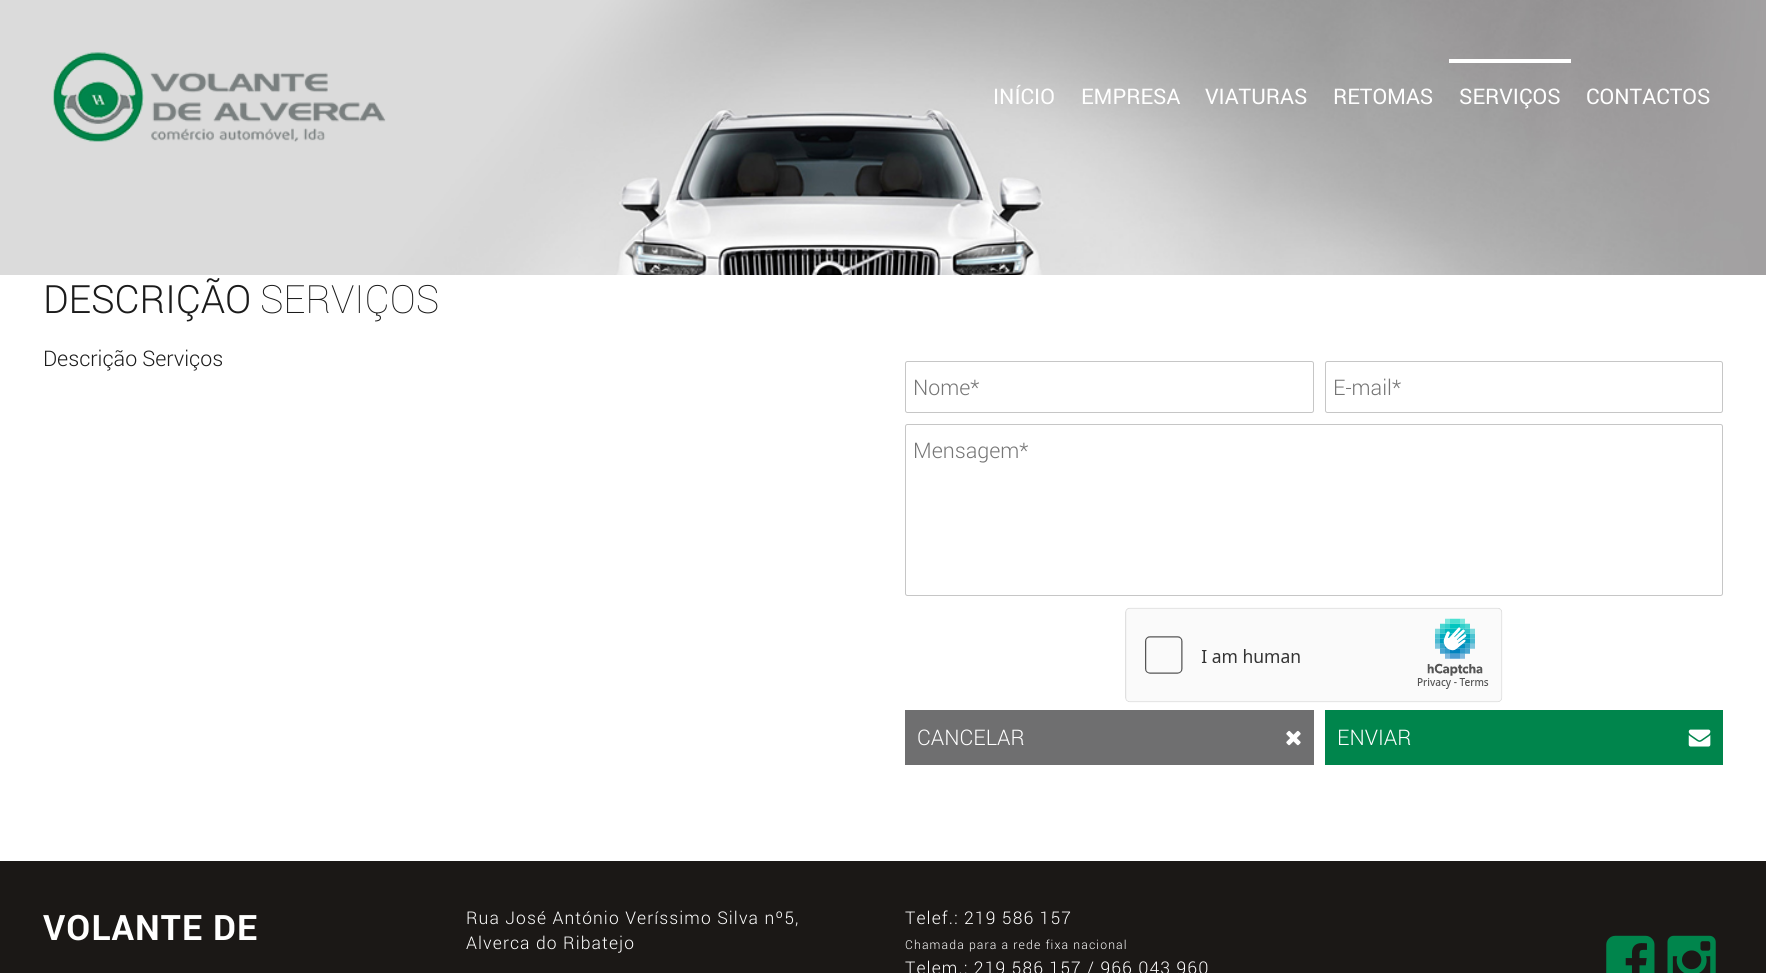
import math
import cairo


def write_spaced(ctx, x, y, s, letter, word):
	ctx.move_to(x, y)
	for ch in s:
		ctx.show_text(ch)
		ctx.rel_move_to(letter + word * (ch == ' '), 0)

def round_path(ctx, x, y, w, h, r):
	ctx.new_sub_path()
	for i, (u, v) in enumerate([(x + w - r, y + h - r), (x + r, y + h - r), (x + r, y + r), (x + w - r, y + r)]):
		ctx.arc(u, v, r, i * math.pi / 2, (i + 1) * math.pi / 2)
	ctx.close_path()

def paste(ctx, path, x, y, w, h):
	ctx.save()
	ctx.set_source_surface(cairo.ImageSurface.create_from_png(path), x, y)
	ctx.rectangle(x, y, w, h)
	ctx.fill()
	ctx.restore()

def draw(ctx):
	ctx.set_source_rgb(1, 1, 1)
	ctx.paint()
	paste(ctx, 'media/1.png', 0, 0, 1766, 275)
	paste(ctx, 'media/2.png', 52, 52, 334, 90)
	ctx.select_font_face('Roboto')
	ctx.set_font_size(21.5)
	ctx.set_source_rgb(1, 1, 1)
	for x, y, s in [
		(993, 104, 'INÍCIO'),
		(1081, 104, 'EMPRESA'),
		(1205, 104, 'VIATURAS'),
		(1333, 104, 'RETOMAS'),
	]:
		ctx.move_to(x, y)
		ctx.show_text(s)
	ctx.rectangle(1449, 59, 122, 4)
	ctx.fill()
	ctx.move_to(1459, 104)
	ctx.show_text('SERVIÇOS')
	ctx.move_to(1586, 104)
	ctx.show_text('CONTACTOS')
	ctx.select_font_face('Roboto Light')
	ctx.set_font_size(39)
	ctx.set_source_rgb(0.106, 0.106, 0.106)
	ctx.move_to(43, 313)
	ctx.show_text('DESCRIÇÃO')
	ctx.select_font_face('Roboto Thin')
	ctx.move_to(260, 313)
	ctx.show_text('SERVIÇOS')
	ctx.select_font_face('Roboto Light')
	ctx.set_font_size(21.5)
	ctx.move_to(43, 366)
	ctx.show_text('Descrição Serviços')
	round_path(ctx, 905.5, 361.5, 408, 51, 2)
	ctx.set_source_rgb(0.776, 0.776, 0.776)
	ctx.set_line_width(1)
	ctx.stroke()
	ctx.set_source_rgb(0.459, 0.459, 0.459)
	ctx.move_to(913, 395)
	ctx.show_text('Nome*')
	round_path(ctx, 1325.5, 361.5, 397, 51, 2)
	ctx.set_source_rgb(0.776, 0.776, 0.776)
	ctx.stroke()
	ctx.set_source_rgb(0.459, 0.459, 0.459)
	ctx.move_to(1333, 395)
	ctx.show_text('E-mail*')
	round_path(ctx, 905.5, 424.5, 817, 171, 2)
	ctx.set_source_rgb(0.776, 0.776, 0.776)
	ctx.stroke()
	ctx.set_source_rgb(0.459, 0.459, 0.459)
	ctx.move_to(913, 458)
	ctx.show_text('Mensagem*')
	paste(ctx, 'media/3.png', 1125, 607, 378, 96)
	ctx.set_source_rgb(0.435, 0.435, 0.439)
	ctx.rectangle(905, 710, 409, 55)
	ctx.fill()
	ctx.set_source_rgb(1, 1, 1)
	ctx.move_to(917, 745)
	ctx.show_text('CANCELAR')
	paste(ctx, 'media/4.png', 1286, 730, 15, 16)
	ctx.set_source_rgb(0, 0.522, 0.298)
	ctx.rectangle(1325, 710, 398, 55)
	ctx.fill()
	ctx.set_source_rgb(1, 1, 1)
	ctx.move_to(1337, 745)
	ctx.show_text('ENVIAR')
	paste(ctx, 'media/5.png', 1688, 729, 23, 18)
	ctx.set_source_rgb(0.106, 0.094, 0.086)
	ctx.rectangle(0, 861, 1766, 112)
	ctx.fill()
	ctx.select_font_face('Roboto', cairo.FONT_SLANT_NORMAL, cairo.FONT_WEIGHT_BOLD)
	ctx.set_font_size(35)
	ctx.set_source_rgb(1, 1, 1)
	write_spaced(ctx, 43, 940, 'VOLANTE DE', 1.1, 0)
	ctx.select_font_face('Roboto Light')
	ctx.set_font_size(17.5)
	for x, y, s in [
		(466, 924, 'Rua José António Veríssimo Silva nº5,'),
		(466, 949, 'Alverca do Ribatejo'),
		(905, 924, 'Telef.: 219 586 157'),
	]:
		write_spaced(ctx, x, y, s, 1.1, 0)
	ctx.set_font_size(12.25)
	write_spaced(ctx, 905, 949, 'Chamada para a rede fixa nacional', 1.1, 0)
	ctx.set_font_size(17.5)
	write_spaced(ctx, 905, 974, 'Telem.: 219 586 157 / 966 043 960', 1.1, 0)
	paste(ctx, 'media/6.png', 1606, 935, 49, 38)
	paste(ctx, 'media/7.png', 1667, 935, 49, 38)


surface = cairo.ImageSurface(cairo.FORMAT_RGB24, 1766, 973)
ctx = cairo.Context(surface)
options = cairo.FontOptions()
options.set_hint_metrics(cairo.HINT_METRICS_OFF)
options.set_hint_style(cairo.HINT_STYLE_NONE)
ctx.set_font_options(options)
ctx.set_miter_limit(4)
draw(ctx)
surface.write_to_png('image.png')
